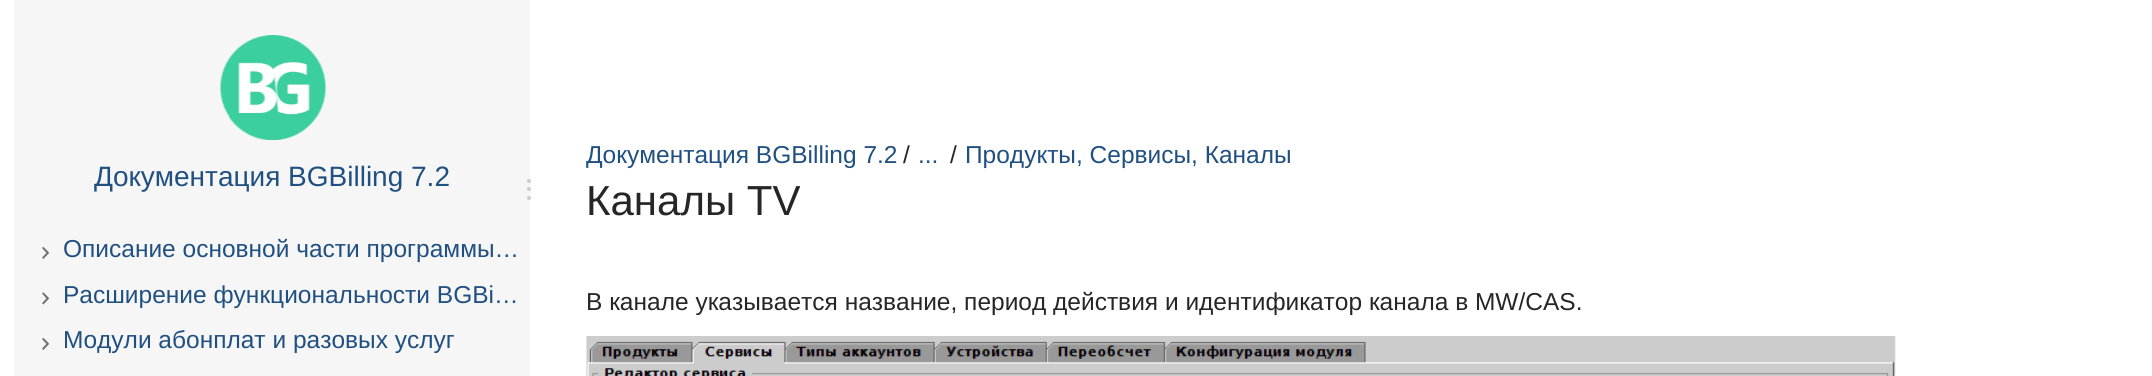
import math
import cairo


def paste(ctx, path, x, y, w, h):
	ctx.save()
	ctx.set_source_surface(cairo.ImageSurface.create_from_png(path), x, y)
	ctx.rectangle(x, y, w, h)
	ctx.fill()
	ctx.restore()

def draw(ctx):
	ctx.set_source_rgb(1, 1, 1)
	ctx.paint()
	ctx.set_source_rgb(0.961, 0.961, 0.961)
	ctx.rectangle(14, 0, 516, 376)
	ctx.fill()
	paste(ctx, 'media/1.png', 220, 35, 106, 105)
	ctx.select_font_face('Liberation Sans')
	ctx.set_font_size(28)
	ctx.set_source_rgb(0.125, 0.314, 0.506)
	ctx.move_to(94, 186)
	ctx.show_text('Документация BGBilling 7.2')
	paste(ctx, 'media/2.png', 42, 246, 7, 13)
	ctx.set_font_size(24.5)
	ctx.move_to(63, 257)
	ctx.show_text('Описание основной части программы…')
	paste(ctx, 'media/3.png', 42, 292, 7, 13)
	ctx.move_to(63, 303)
	ctx.show_text('Расширение функциональности BGBi…')
	paste(ctx, 'media/2.png', 42, 337, 7, 13)
	ctx.move_to(63, 348)
	ctx.show_text('Модули абонплат и разовых услуг')
	ctx.set_source_rgb(0.8, 0.8, 0.8)
	ctx.new_path()
	ctx.arc(529, 181, 2, 0, 2 * math.pi)
	ctx.fill()
	ctx.arc(529, 189, 2, 0, 2 * math.pi)
	ctx.fill()
	ctx.arc(529, 198, 2, 0, 2 * math.pi)
	ctx.fill()
	ctx.set_source_rgb(0.125, 0.314, 0.506)
	ctx.move_to(586, 163)
	ctx.show_text('Документация BGBilling 7.2')
	ctx.set_source_rgb(0.149, 0.149, 0.149)
	ctx.move_to(903, 163)
	ctx.show_text('/')
	ctx.set_source_rgb(0.125, 0.314, 0.506)
	ctx.move_to(918, 163)
	ctx.show_text('...')
	ctx.set_source_rgb(0.149, 0.149, 0.149)
	ctx.move_to(950, 163)
	ctx.show_text('/')
	ctx.set_source_rgb(0.125, 0.314, 0.506)
	ctx.move_to(965, 163)
	ctx.show_text('Продукты, Сервисы, Каналы')
	ctx.set_font_size(42)
	ctx.set_source_rgb(0.149, 0.149, 0.149)
	ctx.move_to(586, 215)
	ctx.show_text('Каналы TV')
	ctx.set_font_size(24.5)
	ctx.move_to(586, 310)
	ctx.show_text('В канале указывается название, период действия и идентификатор канала в MW/CAS.')
	paste(ctx, 'media/4.png', 586, 336, 1310, 40)


surface = cairo.ImageSurface(cairo.FORMAT_RGB24, 2152, 376)
ctx = cairo.Context(surface)
options = cairo.FontOptions()
options.set_hint_metrics(cairo.HINT_METRICS_OFF)
options.set_hint_style(cairo.HINT_STYLE_NONE)
ctx.set_font_options(options)
ctx.set_miter_limit(4)
draw(ctx)
surface.write_to_png('image.png')
